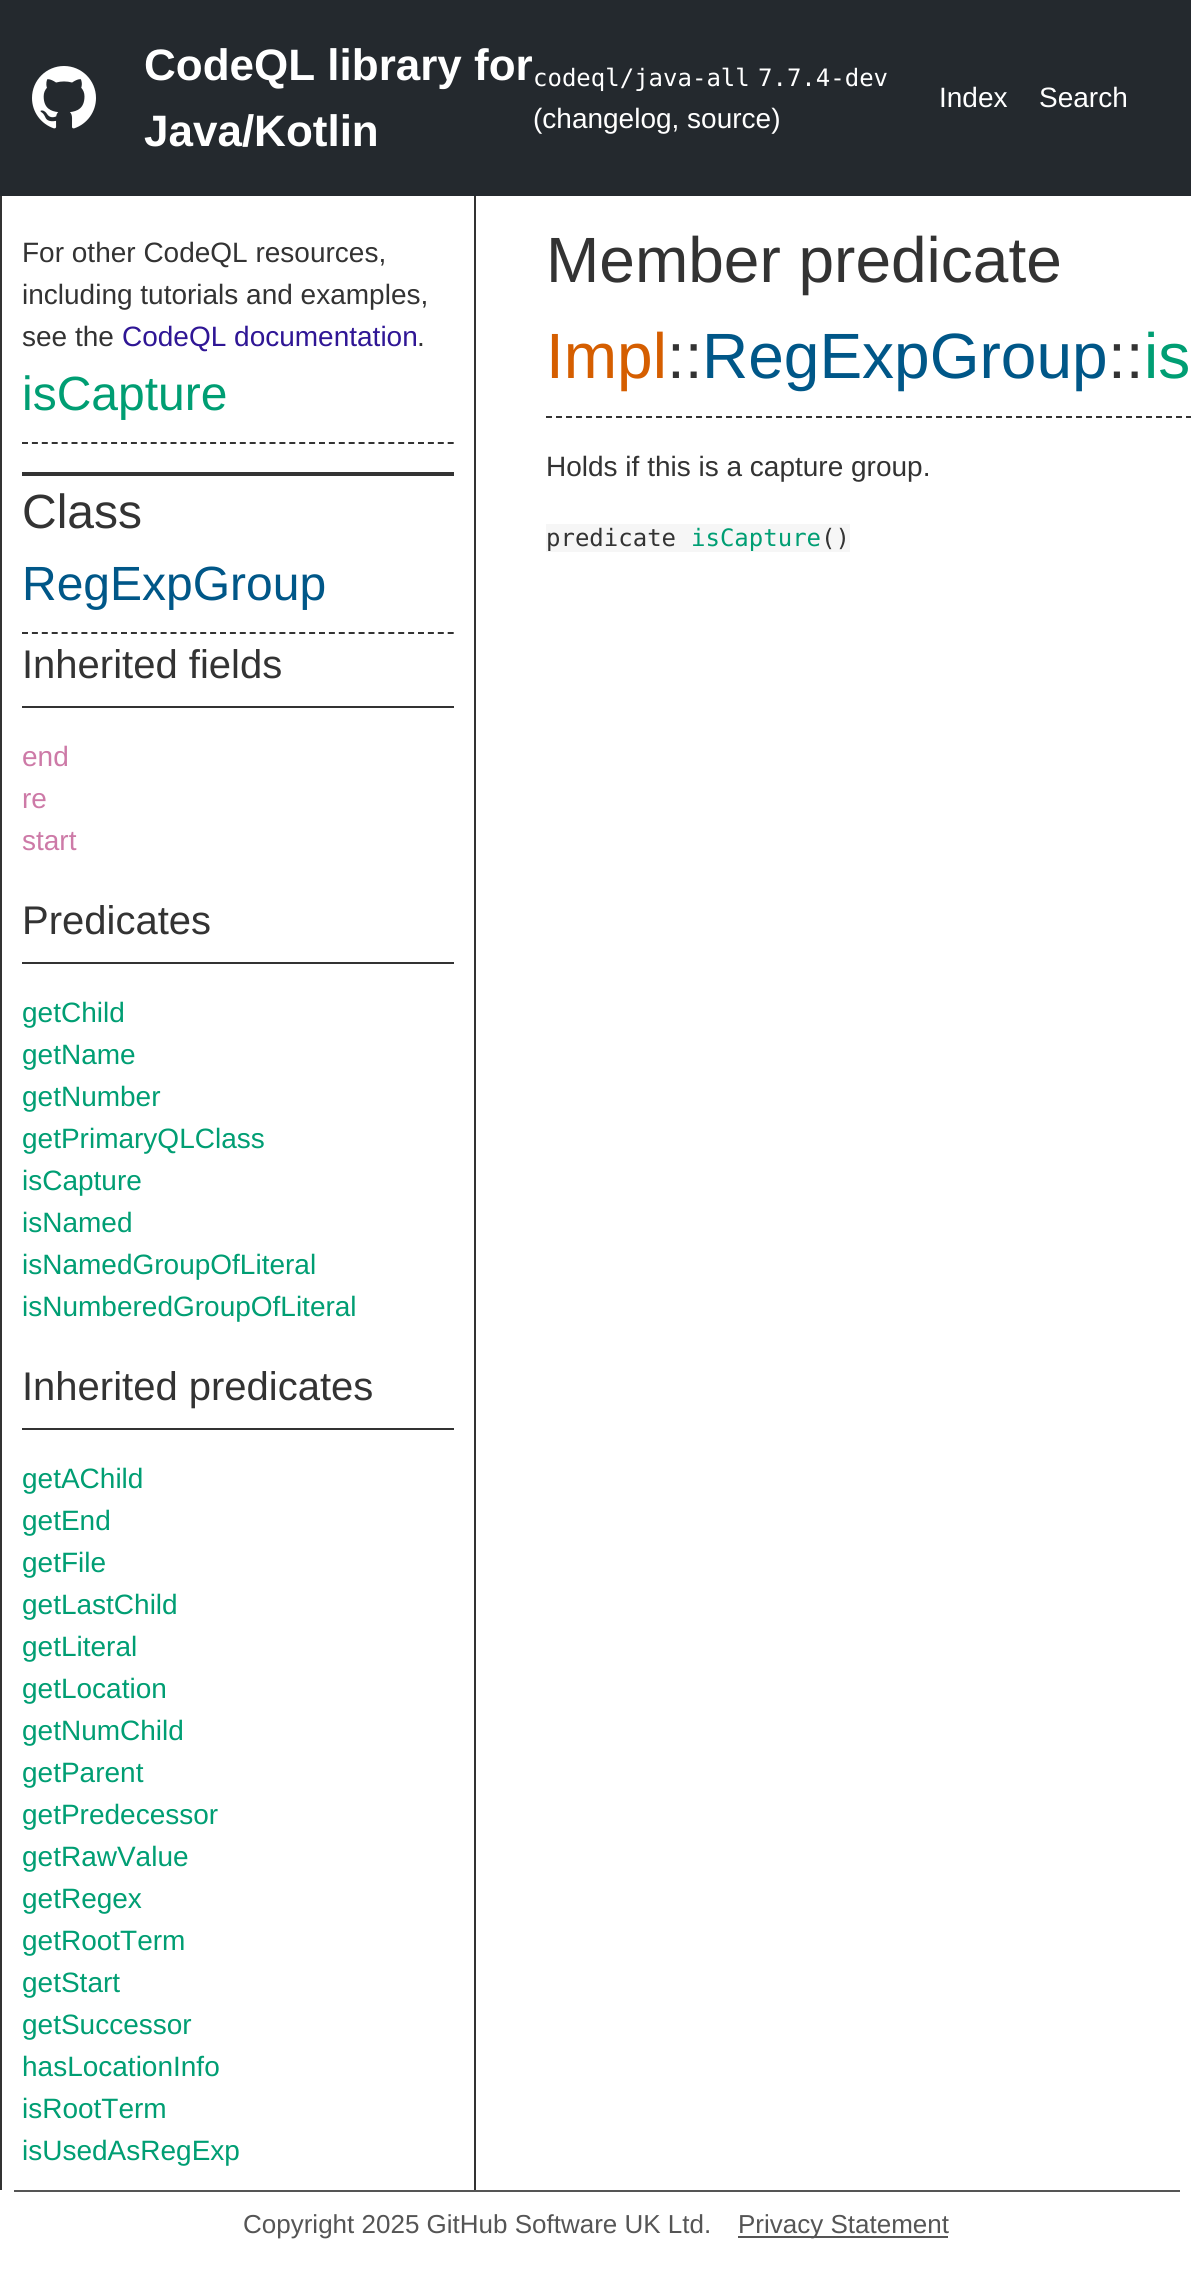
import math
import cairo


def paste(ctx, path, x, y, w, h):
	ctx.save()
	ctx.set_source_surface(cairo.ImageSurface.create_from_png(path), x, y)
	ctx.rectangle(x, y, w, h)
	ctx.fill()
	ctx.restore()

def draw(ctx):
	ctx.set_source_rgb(1, 1, 1)
	ctx.paint()
	ctx.set_source_rgb(0.141, 0.161, 0.18)
	ctx.rectangle(0, 0, 1191, 196)
	ctx.fill()
	paste(ctx, 'media/1.png', 32, 66, 64, 63)
	ctx.select_font_face('Liberation Sans', cairo.FONT_SLANT_NORMAL, cairo.FONT_WEIGHT_BOLD)
	ctx.set_font_size(44)
	ctx.set_source_rgb(1, 1, 1)
	ctx.move_to(144, 80)
	ctx.show_text('CodeQL library for')
	ctx.move_to(144, 146)
	ctx.show_text('Java/Kotlin')
	ctx.select_font_face('DejaVu Sans Mono')
	ctx.set_font_size(24)
	ctx.move_to(533, 86)
	ctx.show_text('codeql/java-all')
	ctx.move_to(758, 86)
	ctx.show_text('7.7.4-dev')
	ctx.select_font_face('Liberation Sans')
	ctx.set_font_size(28)
	for x, y, s in [
		(533, 128, '(changelog, source)'),
		(939, 107, 'Index'),
		(1039, 107, 'Search'),
	]:
		ctx.move_to(x, y)
		ctx.show_text(s)
	ctx.set_source_rgb(0.2, 0.2, 0.2)
	ctx.rectangle(474, 196, 2, 1994)
	ctx.rectangle(0, 196, 2, 1994)
	ctx.rectangle(22, 472, 432, 4)
	ctx.fill()
	for x, y, s in [
		(22, 262, 'For other CodeQL resources,'),
		(22, 304, 'including tutorials and examples,'),
		(22, 346, 'see the'),
	]:
		ctx.move_to(x, y)
		ctx.show_text(s)
	ctx.set_source_rgb(0.184, 0.086, 0.584)
	ctx.move_to(122, 346)
	ctx.show_text('CodeQL documentation')
	ctx.set_source_rgb(0.2, 0.2, 0.2)
	ctx.move_to(417, 346)
	ctx.show_text('.')
	ctx.new_path()
	ctx.move_to(22, 443)
	ctx.line_to(454, 443)
	ctx.set_dash([6, 3.9])
	ctx.stroke()
	ctx.set_font_size(48)
	ctx.set_source_rgb(0, 0.62, 0.451)
	ctx.move_to(22, 410)
	ctx.show_text('isCapture')
	ctx.new_path()
	ctx.move_to(22, 633)
	ctx.line_to(454, 633)
	ctx.set_source_rgb(0.2, 0.2, 0.2)
	ctx.stroke()
	ctx.move_to(22, 528)
	ctx.show_text('Class')
	ctx.set_source_rgb(0, 0.341, 0.533)
	ctx.move_to(22, 600)
	ctx.show_text('RegExpGroup')
	ctx.set_source_rgb(0.2, 0.2, 0.2)
	ctx.rectangle(22, 706, 432, 2)
	ctx.fill()
	ctx.set_font_size(40)
	ctx.move_to(22, 678)
	ctx.show_text('Inherited fields')
	ctx.set_font_size(28)
	ctx.set_source_rgb(0.804, 0.478, 0.655)
	for x, y, s in [
		(22, 766, 'end'),
		(22, 808, 're'),
		(22, 850, 'start'),
	]:
		ctx.move_to(x, y)
		ctx.show_text(s)
	ctx.set_source_rgb(0.2, 0.2, 0.2)
	ctx.rectangle(22, 962, 432, 2)
	ctx.fill()
	ctx.set_font_size(40)
	ctx.move_to(22, 934)
	ctx.show_text('Predicates')
	ctx.set_font_size(28)
	ctx.set_source_rgb(0, 0.62, 0.451)
	for x, y, s in [
		(22, 1022, 'getChild'),
		(22, 1064, 'getName'),
		(22, 1106, 'getNumber'),
		(22, 1148, 'getPrimaryQLClass'),
		(22, 1190, 'isCapture'),
		(22, 1232, 'isNamed'),
		(22, 1274, 'isNamedGroupOfLiteral'),
		(22, 1316, 'isNumberedGroupOfLiteral'),
	]:
		ctx.move_to(x, y)
		ctx.show_text(s)
	ctx.set_source_rgb(0.2, 0.2, 0.2)
	ctx.rectangle(22, 1428, 432, 2)
	ctx.fill()
	ctx.set_font_size(40)
	ctx.move_to(22, 1400)
	ctx.show_text('Inherited predicates')
	ctx.set_font_size(28)
	ctx.set_source_rgb(0, 0.62, 0.451)
	for x, y, s in [
		(22, 1488, 'getAChild'),
		(22, 1530, 'getEnd'),
		(22, 1572, 'getFile'),
		(22, 1614, 'getLastChild'),
		(22, 1656, 'getLiteral'),
		(22, 1698, 'getLocation'),
		(22, 1740, 'getNumChild'),
		(22, 1782, 'getParent'),
		(22, 1824, 'getPredecessor'),
		(22, 1866, 'getRawValue'),
		(22, 1908, 'getRegex'),
		(22, 1950, 'getRootTerm'),
		(22, 1992, 'getStart'),
		(22, 2034, 'getSuccessor'),
		(22, 2076, 'hasLocationInfo'),
		(22, 2118, 'isRootTerm'),
		(22, 2160, 'isUsedAsRegExp'),
	]:
		ctx.move_to(x, y)
		ctx.show_text(s)
	ctx.new_path()
	ctx.move_to(546, 417)
	ctx.line_to(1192, 417)
	ctx.set_source_rgb(0.2, 0.2, 0.2)
	ctx.set_dash([6, 4])
	ctx.stroke()
	ctx.set_font_size(64)
	ctx.move_to(546, 282)
	ctx.show_text('Member predicate')
	ctx.set_source_rgb(0.835, 0.369, 0)
	ctx.move_to(546, 378)
	ctx.show_text('Impl')
	ctx.set_source_rgb(0.2, 0.2, 0.2)
	ctx.move_to(667, 378)
	ctx.show_text('::')
	ctx.set_source_rgb(0, 0.341, 0.533)
	ctx.move_to(702, 378)
	ctx.show_text('RegExpGroup')
	ctx.set_source_rgb(0.2, 0.2, 0.2)
	ctx.move_to(1108, 378)
	ctx.show_text('::')
	ctx.set_source_rgb(0, 0.62, 0.451)
	ctx.move_to(1144, 378)
	ctx.show_text('is')
	ctx.set_font_size(28)
	ctx.set_source_rgb(0.2, 0.2, 0.2)
	ctx.move_to(546, 476)
	ctx.show_text('Holds if this is a capture group.')
	ctx.set_source_rgb(0.961, 0.961, 0.961)
	ctx.rectangle(546, 524, 304, 28)
	ctx.fill()
	ctx.select_font_face('DejaVu Sans Mono')
	ctx.set_font_size(24)
	ctx.set_source_rgb(0.2, 0.2, 0.2)
	ctx.move_to(546, 546)
	ctx.show_text('predicate')
	ctx.set_source_rgb(0, 0.62, 0.451)
	ctx.move_to(691, 546)
	ctx.show_text('isCapture')
	ctx.set_source_rgb(0.2, 0.2, 0.2)
	ctx.move_to(821, 546)
	ctx.show_text('()')
	ctx.set_source_rgb(0.333, 0.333, 0.333)
	ctx.rectangle(14, 2190, 1166, 2)
	ctx.fill()
	ctx.select_font_face('Liberation Sans')
	ctx.set_font_size(26)
	ctx.move_to(243, 2233)
	ctx.show_text('Copyright 2025 GitHub Software UK Ltd.')
	ctx.rectangle(738, 2236, 210, 2)
	ctx.fill()
	ctx.move_to(738, 2233)
	ctx.show_text('Privacy Statement')


surface = cairo.ImageSurface(cairo.FORMAT_RGB24, 1191, 2269)
ctx = cairo.Context(surface)
options = cairo.FontOptions()
options.set_hint_metrics(cairo.HINT_METRICS_OFF)
options.set_hint_style(cairo.HINT_STYLE_NONE)
ctx.set_font_options(options)
ctx.set_miter_limit(4)
draw(ctx)
surface.write_to_png('image.png')
